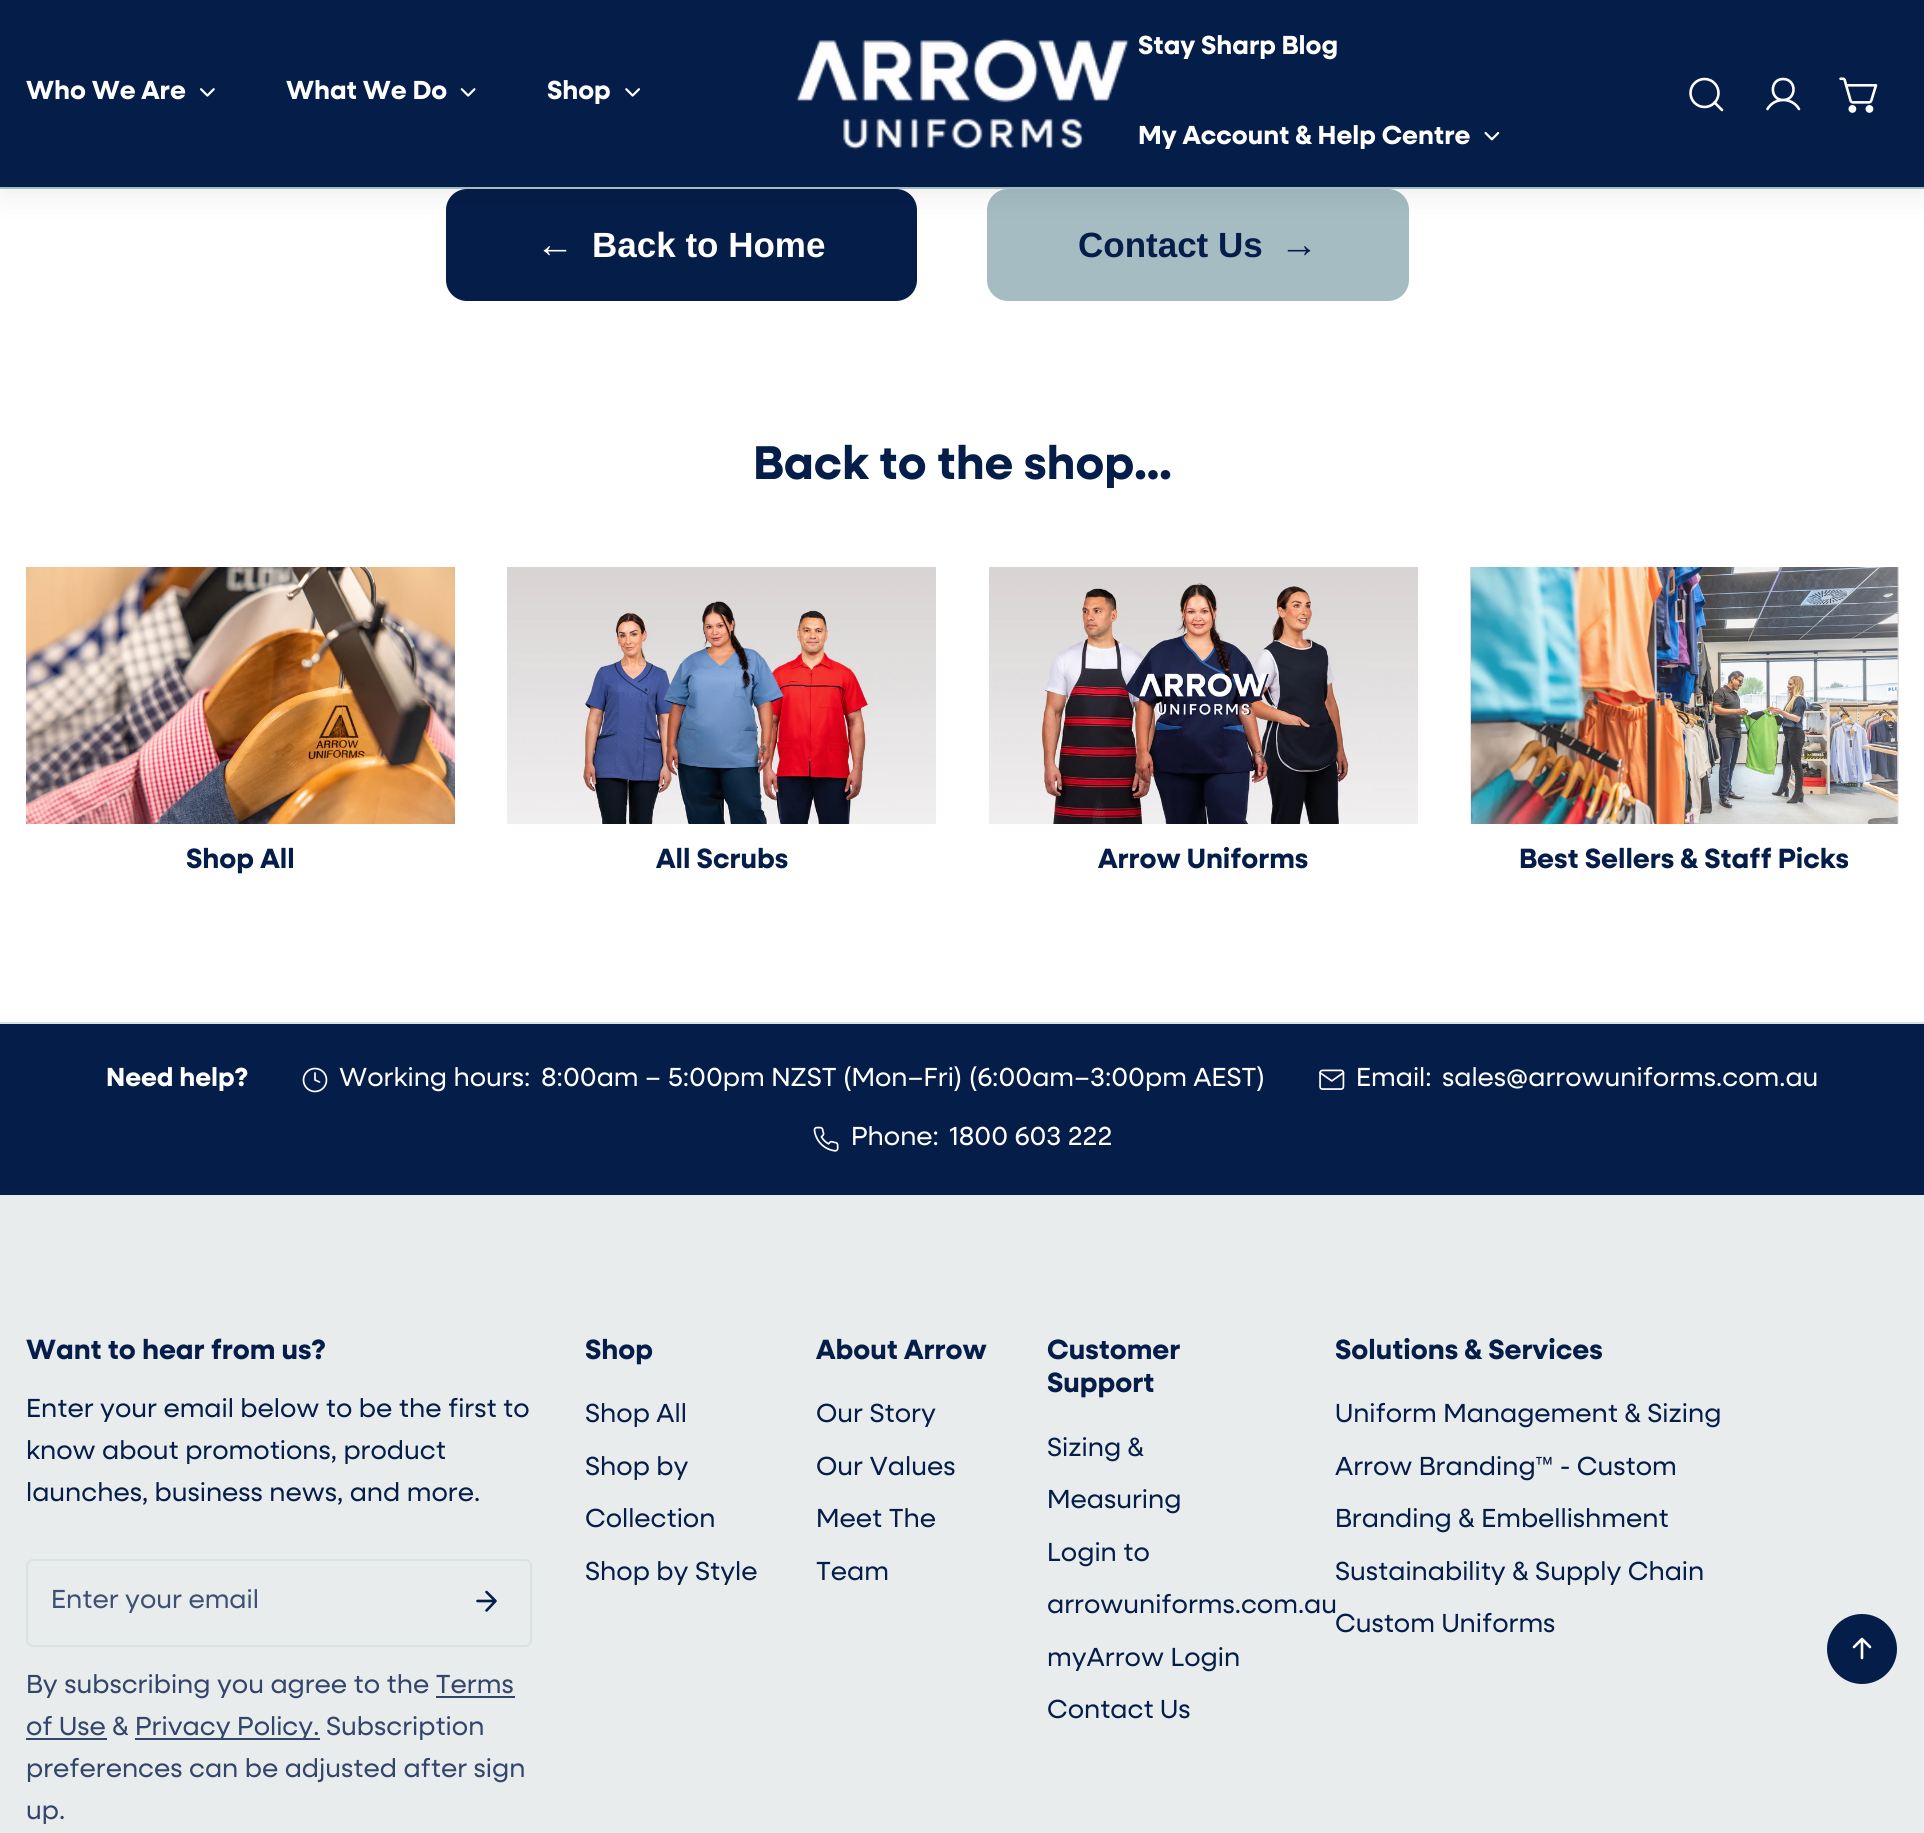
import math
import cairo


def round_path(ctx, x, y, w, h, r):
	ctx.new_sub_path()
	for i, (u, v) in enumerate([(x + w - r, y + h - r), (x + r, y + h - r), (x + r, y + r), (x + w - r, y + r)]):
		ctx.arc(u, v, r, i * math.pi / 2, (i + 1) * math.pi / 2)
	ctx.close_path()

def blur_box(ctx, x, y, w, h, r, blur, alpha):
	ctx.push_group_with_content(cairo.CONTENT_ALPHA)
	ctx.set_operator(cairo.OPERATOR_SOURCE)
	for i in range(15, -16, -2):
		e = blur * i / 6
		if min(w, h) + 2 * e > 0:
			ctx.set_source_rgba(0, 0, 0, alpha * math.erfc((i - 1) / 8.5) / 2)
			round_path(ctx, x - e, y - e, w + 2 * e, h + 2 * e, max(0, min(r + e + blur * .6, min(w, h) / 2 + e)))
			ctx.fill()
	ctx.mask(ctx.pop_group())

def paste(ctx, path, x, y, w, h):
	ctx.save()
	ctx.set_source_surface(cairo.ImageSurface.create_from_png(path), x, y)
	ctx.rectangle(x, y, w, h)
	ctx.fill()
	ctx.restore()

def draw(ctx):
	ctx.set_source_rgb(1, 1, 1)
	ctx.paint()
	ctx.set_source_rgb(0.02, 0.114, 0.286)
	round_path(ctx, 446, 189, 471, 112, 21)
	ctx.fill()
	ctx.set_source_rgb(0.643, 0.737, 0.761)
	round_path(ctx, 987, 189, 422, 112, 21)
	ctx.fill()
	ctx.set_source_rgb(0, 0, 0)
	blur_box(ctx, 0, 7, 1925, 189, 0, 16, 0.07)
	ctx.set_source_rgb(0.02, 0.114, 0.286)
	ctx.rectangle(0, 0, 1924, 187)
	ctx.fill()
	ctx.set_source_rgb(0.643, 0.737, 0.761)
	ctx.rectangle(0, 187, 1924, 2)
	ctx.fill()
	ctx.select_font_face('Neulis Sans', cairo.FONT_SLANT_NORMAL, cairo.FONT_WEIGHT_BOLD)
	ctx.set_font_size(26.25)
	ctx.set_source_rgb(1, 1, 1)
	ctx.move_to(26, 99)
	ctx.show_text('Who We Are')
	paste(ctx, 'media/1.png', 200, 88, 15, 9)
	ctx.move_to(286, 99)
	ctx.show_text('What We Do')
	paste(ctx, 'media/2.png', 460, 88, 16, 9)
	ctx.move_to(547, 99)
	ctx.show_text('Shop')
	paste(ctx, 'media/3.png', 625, 88, 15, 9)
	paste(ctx, 'media/4.png', 796, 38, 333, 112)
	ctx.move_to(1138, 54)
	ctx.show_text('Stay Sharp Blog')
	ctx.move_to(1138, 144)
	ctx.show_text('My Account & Help Centre')
	paste(ctx, 'media/5.png', 1484, 131, 16, 10)
	ctx.arc(1704.5, 93, 14, 0, 2 * math.pi)
	ctx.set_line_width(2.6)
	ctx.stroke()
	ctx.new_path()
	ctx.move_to(1722, 110)
	ctx.line_to(1714.5, 102.5)
	ctx.set_line_cap(cairo.LINE_CAP_ROUND)
	ctx.set_line_join(cairo.LINE_JOIN_ROUND)
	ctx.stroke()
	ctx.new_path()
	ctx.move_to(1783, 100)
	ctx.curve_to(1797, 100, 1797, 79, 1783, 79)
	ctx.curve_to(1769.5, 79, 1769.5, 100, 1783, 100)
	ctx.close_path()
	ctx.move_to(1767.5, 109)
	ctx.curve_to(1774.5, 97, 1792, 97, 1799, 109)
	ctx.stroke()
	paste(ctx, 'media/6.png', 1839, 77, 39, 36)
	ctx.select_font_face('Liberation Sans', cairo.FONT_SLANT_NORMAL, cairo.FONT_WEIGHT_BOLD)
	ctx.set_font_size(38)
	ctx.move_to(536, 257)
	ctx.show_text('←')
	ctx.set_font_size(35)
	ctx.move_to(592, 257)
	ctx.show_text('Back to Home')
	ctx.set_source_rgb(0.02, 0.114, 0.286)
	ctx.move_to(1078, 257)
	ctx.show_text('Contact Us')
	ctx.set_font_size(38)
	ctx.move_to(1280, 257)
	ctx.show_text('→')
	ctx.select_font_face('Neulis Sans', cairo.FONT_SLANT_NORMAL, cairo.FONT_WEIGHT_BOLD)
	ctx.set_font_size(47.5)
	ctx.move_to(753, 479)
	ctx.show_text('Back to the shop...')
	paste(ctx, 'media/7.png', 26, 567, 429, 257)
	ctx.set_font_size(28)
	ctx.move_to(186, 868)
	ctx.show_text('Shop All')
	paste(ctx, 'media/8.png', 507, 567, 429, 257)
	ctx.move_to(656, 868)
	ctx.show_text('All Scrubs')
	paste(ctx, 'media/9.png', 989, 567, 429, 257)
	ctx.move_to(1098, 868)
	ctx.show_text('Arrow Uniforms')
	paste(ctx, 'media/10.png', 1470, 567, 429, 257)
	ctx.move_to(1519, 868)
	ctx.show_text('Best Sellers & Staff Picks')
	ctx.set_source_rgb(0.851, 0.882, 0.886)
	ctx.rectangle(0, 1022, 1924, 2)
	ctx.fill()
	ctx.set_source_rgb(0.02, 0.114, 0.286)
	ctx.rectangle(0, 1024, 1924, 171)
	ctx.fill()
	ctx.set_font_size(26.25)
	ctx.set_source_rgb(1, 1, 1)
	ctx.move_to(106, 1086)
	ctx.show_text('Need help?')
	ctx.new_path()
	ctx.arc(315, 1080, 11.5, 0, 2 * math.pi)
	ctx.set_line_width(1.7)
	ctx.set_line_cap(cairo.LINE_CAP_BUTT)
	ctx.set_line_join(cairo.LINE_JOIN_MITER)
	ctx.stroke()
	ctx.new_path()
	ctx.move_to(315, 1073)
	ctx.line_to(315, 1080)
	ctx.line_to(319.5, 1082)
	ctx.set_line_cap(cairo.LINE_CAP_ROUND)
	ctx.set_line_join(cairo.LINE_JOIN_ROUND)
	ctx.stroke()
	ctx.select_font_face('Neulis Sans')
	ctx.move_to(339, 1086)
	ctx.show_text('Working hours:')
	ctx.move_to(541, 1086)
	ctx.show_text('8:00am – 5:00pm NZST (Mon–Fri) (6:00am–3:00pm AEST)')
	paste(ctx, 'media/11.png', 1319, 1069, 26, 21)
	ctx.move_to(1356, 1086)
	ctx.show_text('Email:')
	ctx.move_to(1442, 1086)
	ctx.show_text('sales@arrowuniforms.com.au')
	paste(ctx, 'media/12.png', 813, 1126, 26, 26)
	ctx.move_to(851, 1145)
	ctx.show_text('Phone:')
	ctx.move_to(949, 1145)
	ctx.show_text('1800 603 222')
	ctx.set_source_rgb(0.914, 0.925, 0.929)
	ctx.rectangle(0, 1195, 1924, 638)
	ctx.fill()
	ctx.select_font_face('Neulis Sans', cairo.FONT_SLANT_NORMAL, cairo.FONT_WEIGHT_BOLD)
	ctx.set_font_size(28)
	ctx.set_source_rgb(0.02, 0.114, 0.286)
	ctx.move_to(26, 1359)
	ctx.show_text('Want to hear from us?')
	ctx.select_font_face('Neulis Sans')
	ctx.set_font_size(26.25)
	for x, y, s in [
		(26, 1417, 'Enter your email below to be the first to'),
		(26, 1459, 'know about promotions, product'),
		(26, 1501, 'launches, business news, and more.'),
	]:
		ctx.move_to(x, y)
		ctx.show_text(s)
	round_path(ctx, 27, 1560, 504, 86, 6)
	ctx.set_source_rgb(0.851, 0.882, 0.886)
	ctx.set_line_width(2)
	ctx.set_line_cap(cairo.LINE_CAP_BUTT)
	ctx.set_line_join(cairo.LINE_JOIN_MITER)
	ctx.stroke()
	ctx.set_source_rgb(0.243, 0.318, 0.447)
	ctx.move_to(51, 1608)
	ctx.show_text('Enter your email')
	ctx.new_path()
	ctx.move_to(477.5, 1601)
	ctx.line_to(495.5, 1601)
	ctx.move_to(486.5, 1592)
	ctx.line_to(495.5, 1601)
	ctx.line_to(486.5, 1610.5)
	ctx.set_source_rgb(0.02, 0.114, 0.286)
	ctx.set_line_width(2.6)
	ctx.set_line_cap(cairo.LINE_CAP_ROUND)
	ctx.set_line_join(cairo.LINE_JOIN_ROUND)
	ctx.stroke()
	ctx.set_source_rgb(0.2, 0.275, 0.416)
	ctx.move_to(26, 1693)
	ctx.show_text('By subscribing you agree to the Terms')
	ctx.move_to(26, 1735)
	ctx.show_text('of Use &')
	ctx.rectangle(436, 1696, 79, 2)
	ctx.rectangle(26, 1738, 81, 2)
	ctx.rectangle(135, 1738, 185, 2)
	ctx.fill()
	for x, y, s in [
		(135, 1735, 'Privacy Policy.'),
		(326, 1735, 'Subscription'),
		(26, 1777, 'preferences can be adjusted after sign'),
		(26, 1819, 'up.'),
	]:
		ctx.move_to(x, y)
		ctx.show_text(s)
	ctx.select_font_face('Neulis Sans', cairo.FONT_SLANT_NORMAL, cairo.FONT_WEIGHT_BOLD)
	ctx.set_font_size(28)
	ctx.set_source_rgb(0.02, 0.114, 0.286)
	ctx.move_to(585, 1359)
	ctx.show_text('Shop')
	ctx.select_font_face('Neulis Sans')
	ctx.set_font_size(26.25)
	for x, y, s in [
		(585, 1422, 'Shop All'),
		(585, 1475, 'Shop by'),
		(585, 1527, 'Collection'),
		(585, 1580, 'Shop by Style'),
	]:
		ctx.move_to(x, y)
		ctx.show_text(s)
	ctx.select_font_face('Neulis Sans', cairo.FONT_SLANT_NORMAL, cairo.FONT_WEIGHT_BOLD)
	ctx.set_font_size(28)
	ctx.move_to(816, 1359)
	ctx.show_text('About Arrow')
	ctx.select_font_face('Neulis Sans')
	ctx.set_font_size(26.25)
	for x, y, s in [
		(816, 1422, 'Our Story'),
		(816, 1475, 'Our Values'),
		(816, 1527, 'Meet The'),
		(816, 1580, 'Team'),
	]:
		ctx.move_to(x, y)
		ctx.show_text(s)
	ctx.select_font_face('Neulis Sans', cairo.FONT_SLANT_NORMAL, cairo.FONT_WEIGHT_BOLD)
	ctx.set_font_size(28)
	ctx.move_to(1047, 1359)
	ctx.show_text('Customer')
	ctx.move_to(1047, 1392)
	ctx.show_text('Support')
	ctx.select_font_face('Neulis Sans')
	ctx.set_font_size(26.25)
	for x, y, s in [
		(1047, 1456, 'Sizing &'),
		(1047, 1508, 'Measuring'),
		(1047, 1561, 'Login to'),
		(1047, 1613, 'arrowuniforms.com.au'),
		(1047, 1666, 'myArrow Login'),
		(1047, 1718, 'Contact Us'),
	]:
		ctx.move_to(x, y)
		ctx.show_text(s)
	ctx.select_font_face('Neulis Sans', cairo.FONT_SLANT_NORMAL, cairo.FONT_WEIGHT_BOLD)
	ctx.set_font_size(28)
	ctx.move_to(1335, 1359)
	ctx.show_text('Solutions & Services')
	ctx.select_font_face('Neulis Sans')
	ctx.set_font_size(26.25)
	for x, y, s in [
		(1335, 1422, 'Uniform Management & Sizing'),
		(1335, 1475, 'Arrow Branding™ - Custom'),
		(1335, 1527, 'Branding & Embellishment'),
		(1335, 1580, 'Sustainability & Supply Chain'),
		(1335, 1632, 'Custom Uniforms'),
	]:
		ctx.move_to(x, y)
		ctx.show_text(s)
	ctx.new_path()
	ctx.arc(1862, 1649, 35, 0, 2 * math.pi)
	ctx.fill()
	ctx.new_path()
	ctx.move_to(1862, 1658)
	ctx.line_to(1862, 1639)
	ctx.move_to(1854, 1647)
	ctx.line_to(1862, 1639)
	ctx.line_to(1870, 1647)
	ctx.set_source_rgb(1, 1, 1)
	ctx.stroke()


surface = cairo.ImageSurface(cairo.FORMAT_RGB24, 1924, 1833)
ctx = cairo.Context(surface)
options = cairo.FontOptions()
options.set_hint_metrics(cairo.HINT_METRICS_OFF)
options.set_hint_style(cairo.HINT_STYLE_NONE)
ctx.set_font_options(options)
ctx.set_miter_limit(4)
draw(ctx)
surface.write_to_png('image.png')
